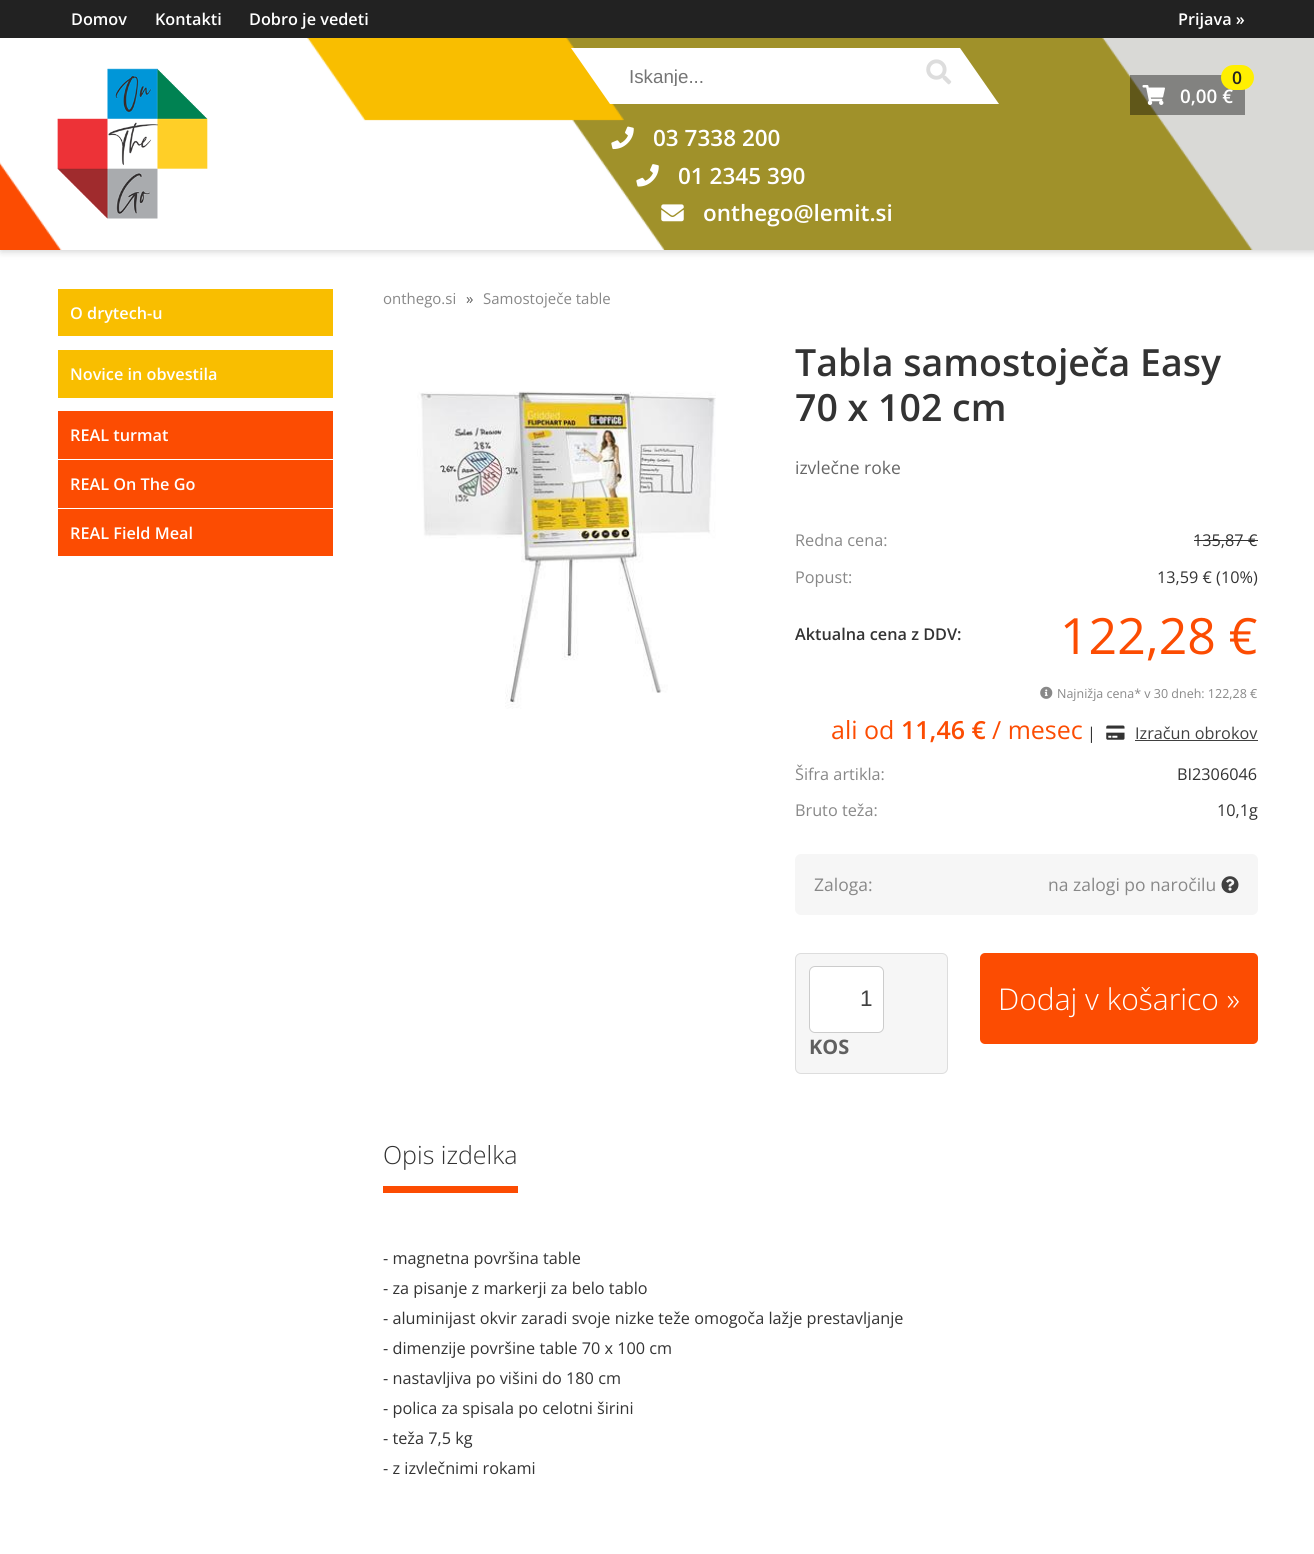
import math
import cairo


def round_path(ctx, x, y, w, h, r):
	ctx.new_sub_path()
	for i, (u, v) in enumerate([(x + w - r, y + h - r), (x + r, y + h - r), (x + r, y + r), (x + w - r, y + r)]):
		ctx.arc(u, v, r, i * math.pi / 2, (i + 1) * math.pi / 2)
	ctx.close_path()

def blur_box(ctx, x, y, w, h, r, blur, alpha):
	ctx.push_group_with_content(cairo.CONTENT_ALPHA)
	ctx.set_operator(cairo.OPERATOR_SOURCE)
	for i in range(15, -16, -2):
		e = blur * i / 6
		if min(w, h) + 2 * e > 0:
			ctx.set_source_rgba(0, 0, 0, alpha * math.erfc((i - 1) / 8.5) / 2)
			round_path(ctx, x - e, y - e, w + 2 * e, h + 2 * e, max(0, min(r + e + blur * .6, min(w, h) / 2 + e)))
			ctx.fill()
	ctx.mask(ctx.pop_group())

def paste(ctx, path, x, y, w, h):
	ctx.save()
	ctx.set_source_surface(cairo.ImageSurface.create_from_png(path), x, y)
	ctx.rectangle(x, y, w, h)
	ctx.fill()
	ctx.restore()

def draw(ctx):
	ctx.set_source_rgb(1, 1, 1)
	ctx.paint()
	ctx.set_source_rgb(0.8, 0.8, 0.8)
	blur_box(ctx, 1, 1, 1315, 250, 0, 4, 1)
	ctx.set_source_rgb(0.133, 0.133, 0.133)
	ctx.rectangle(0, 0, 1314, 38)
	ctx.fill()
	ctx.select_font_face('Open Sans SemiBold')
	ctx.set_font_size(16.25)
	ctx.set_source_rgb(1, 1, 1)
	for x, y, s in [
		(71, 25, 'Domov'),
		(155, 25, 'Kontakti'),
		(249, 25, 'Dobro je vedeti'),
		(1178, 25, 'Prijava »'),
	]:
		ctx.move_to(x, y)
		ctx.show_text(s)
	paste(ctx, 'media/1.png', 0, 38, 1253, 212)
	ctx.set_source_rgb(0.851, 0.851, 0.839)
	ctx.rectangle(1253, 38, 61, 212)
	ctx.fill()
	paste(ctx, 'media/2.png', 57, 68, 151, 151)
	ctx.set_source_rgb(1, 1, 1)
	ctx.new_path()
	ctx.move_to(610, 48)
	ctx.line_to(610, 104)
	ctx.line_to(571, 48)
	ctx.close_path()
	ctx.fill()
	ctx.rectangle(610, 48, 350, 56)
	ctx.fill()
	ctx.save()
	ctx.rectangle(629, 65, 269, 21)
	ctx.clip()
	ctx.select_font_face('Liberation Sans')
	ctx.set_font_size(18.75)
	ctx.set_source_rgb(0.459, 0.459, 0.459)
	ctx.move_to(629, 83)
	ctx.show_text('Iskanje...')
	ctx.restore()
	paste(ctx, 'media/3.png', 926, 59, 26, 26)
	ctx.new_path()
	ctx.move_to(960, 104)
	ctx.line_to(960, 48)
	ctx.line_to(999, 104)
	ctx.close_path()
	ctx.fill()
	ctx.set_source_rgba(0, 0, 0, 0.4)
	ctx.rectangle(1130, 75, 115, 40)
	ctx.fill()
	ctx.set_source_rgb(1, 0.937, 0.004)
	round_path(ctx, 1221, 65, 33, 25, 12.5)
	ctx.fill()
	ctx.set_font_size(17.5)
	ctx.set_source_rgb(0.133, 0.133, 0.133)
	ctx.move_to(1232, 84)
	ctx.show_text('0')
	paste(ctx, 'media/4.png', 1142, 85, 23, 20)
	ctx.set_font_size(18.75)
	ctx.set_source_rgb(1, 1, 1)
	ctx.move_to(1180, 103)
	ctx.show_text('0,00 €')
	paste(ctx, 'media/5.png', 611, 126, 23, 24)
	ctx.set_font_size(22.5)
	ctx.move_to(653, 146)
	ctx.show_text('03 7338 200')
	paste(ctx, 'media/6.png', 636, 164, 23, 23)
	ctx.move_to(678, 184)
	ctx.show_text('01 2345 390')
	paste(ctx, 'media/7.png', 661, 204, 23, 18)
	ctx.move_to(703, 221)
	ctx.show_text('onthego@lemit.si')
	ctx.set_source_rgb(0.976, 0.745, 0)
	ctx.rectangle(58, 289, 275, 47)
	ctx.fill()
	ctx.set_font_size(16.25)
	ctx.set_source_rgb(1, 1, 1)
	ctx.move_to(70, 319)
	ctx.show_text('O drytech-u')
	ctx.set_source_rgb(0.976, 0.745, 0)
	ctx.rectangle(58, 350, 275, 48)
	ctx.fill()
	ctx.set_source_rgb(1, 1, 1)
	ctx.move_to(70, 380)
	ctx.show_text('Novice in obvestila')
	ctx.set_source_rgb(0.988, 0.298, 0.008)
	ctx.rectangle(58, 411, 275, 48)
	ctx.fill()
	ctx.set_source_rgb(1, 1, 1)
	ctx.move_to(70, 441)
	ctx.show_text('REAL turmat')
	ctx.set_source_rgb(0.988, 0.298, 0.008)
	ctx.rectangle(58, 460, 275, 48)
	ctx.fill()
	ctx.set_source_rgb(1, 1, 1)
	ctx.move_to(70, 490)
	ctx.show_text('REAL On The Go')
	ctx.set_source_rgb(0.988, 0.298, 0.008)
	ctx.rectangle(58, 509, 275, 47)
	ctx.fill()
	ctx.set_source_rgb(1, 1, 1)
	ctx.move_to(70, 539)
	ctx.show_text('REAL Field Meal')
	ctx.select_font_face('Open Sans')
	ctx.set_font_size(15)
	ctx.set_source_rgb(0.533, 0.533, 0.533)
	ctx.move_to(383, 304)
	ctx.show_text('onthego.si')
	ctx.set_source_rgb(0.376, 0.376, 0.376)
	ctx.move_to(466, 304)
	ctx.show_text('»')
	ctx.set_source_rgb(0.533, 0.533, 0.533)
	ctx.move_to(483, 304)
	ctx.show_text('Samostoječe table')
	paste(ctx, 'media/8.png', 417, 390, 299, 319)
	ctx.select_font_face('Open Sans SemiBold')
	ctx.set_font_size(37.5)
	ctx.set_source_rgb(0.2, 0.2, 0.2)
	ctx.move_to(795, 376)
	ctx.show_text('Tabla samostoječa Easy')
	ctx.move_to(795, 421)
	ctx.show_text('70 x 102 cm')
	ctx.select_font_face('Open Sans')
	ctx.set_font_size(17.5)
	ctx.set_source_rgb(0.4, 0.4, 0.4)
	ctx.move_to(795, 474)
	ctx.show_text('izvlečne roke')
	ctx.set_font_size(16.25)
	ctx.set_source_rgb(0.533, 0.533, 0.533)
	ctx.move_to(795, 546)
	ctx.show_text('Redna cena:')
	ctx.set_source_rgb(0.2, 0.2, 0.2)
	ctx.move_to(1193, 546)
	ctx.show_text('135,87 €')
	ctx.rectangle(1194, 540, 64, 1)
	ctx.fill()
	ctx.set_source_rgb(0.533, 0.533, 0.533)
	ctx.move_to(795, 583)
	ctx.show_text('Popust:')
	ctx.set_source_rgb(0.2, 0.2, 0.2)
	ctx.move_to(1157, 583)
	ctx.show_text('13,59 € (10%)')
	ctx.select_font_face('Open Sans SemiBold')
	ctx.move_to(795, 640)
	ctx.show_text('Aktualna cena z DDV:')
	ctx.select_font_face('Open Sans')
	ctx.set_font_size(50)
	ctx.set_source_rgb(0.988, 0.298, 0.008)
	ctx.move_to(1060, 654)
	ctx.show_text('122,28 €')
	paste(ctx, 'media/9.png', 1040, 686, 13, 13)
	ctx.set_font_size(12.5)
	ctx.set_source_rgb(0.533, 0.533, 0.533)
	ctx.move_to(1057, 698)
	ctx.show_text('Najnižja cena* v 30 dneh: 122,28 €')
	ctx.set_font_size(25)
	ctx.set_source_rgb(0.988, 0.298, 0.008)
	ctx.move_to(831, 739)
	ctx.show_text('ali od')
	ctx.select_font_face('Open Sans SemiBold')
	ctx.move_to(901, 739)
	ctx.show_text('11,46 €')
	ctx.select_font_face('Open Sans')
	ctx.move_to(992, 739)
	ctx.show_text('/ mesec')
	ctx.set_font_size(16.25)
	ctx.set_source_rgb(0.2, 0.2, 0.2)
	ctx.move_to(1087, 739)
	ctx.show_text('|')
	paste(ctx, 'media/10.png', 1106, 725, 19, 15)
	ctx.set_source_rgb(0.251, 0.251, 0.251)
	ctx.move_to(1135, 739)
	ctx.show_text('Izračun obrokov')
	ctx.rectangle(1135, 740, 123, 1)
	ctx.fill()
	ctx.set_source_rgb(0.533, 0.533, 0.533)
	ctx.move_to(795, 780)
	ctx.show_text('Šifra artikla:')
	ctx.set_source_rgb(0.2, 0.2, 0.2)
	ctx.move_to(1177, 780)
	ctx.show_text('BI2306046')
	ctx.set_source_rgb(0.533, 0.533, 0.533)
	ctx.move_to(795, 816)
	ctx.show_text('Bruto teža:')
	ctx.set_source_rgb(0.2, 0.2, 0.2)
	ctx.move_to(1217, 816)
	ctx.show_text('10,1g')
	ctx.set_source_rgb(0.961, 0.961, 0.961)
	round_path(ctx, 795, 854, 463, 61, 6)
	ctx.fill()
	ctx.set_font_size(17.5)
	ctx.set_source_rgb(0.533, 0.533, 0.533)
	ctx.move_to(814, 891)
	ctx.show_text('Zaloga:')
	ctx.move_to(1048, 891)
	ctx.show_text('na zalogi po naročilu')
	paste(ctx, 'media/11.png', 1221, 876, 18, 18)
	ctx.set_source_rgb(0.961, 0.961, 0.961)
	round_path(ctx, 795.5, 953.5, 152, 120, 5.5)
	ctx.fill_preserve()
	ctx.set_source_rgb(0.867, 0.867, 0.867)
	ctx.set_line_width(1)
	ctx.stroke()
	ctx.set_source_rgb(1, 1, 1)
	round_path(ctx, 809.5, 966.5, 74, 66, 5.5)
	ctx.fill_preserve()
	ctx.set_source_rgb(0.8, 0.8, 0.8)
	ctx.stroke()
	ctx.select_font_face('Liberation Sans')
	ctx.set_font_size(22.5)
	ctx.set_source_rgb(0.251, 0.251, 0.251)
	ctx.move_to(860, 1006)
	ctx.show_text('1')
	ctx.select_font_face('Open Sans', cairo.FONT_SLANT_NORMAL, cairo.FONT_WEIGHT_BOLD)
	ctx.set_font_size(20)
	ctx.set_source_rgb(0.376, 0.376, 0.376)
	ctx.move_to(809, 1054)
	ctx.show_text('KOS')
	ctx.set_source_rgb(0.988, 0.298, 0.008)
	round_path(ctx, 980, 953, 278, 91, 5)
	ctx.fill()
	ctx.select_font_face('Open Sans Light')
	ctx.set_font_size(30)
	ctx.set_source_rgb(1, 1, 1)
	ctx.move_to(998, 1010)
	ctx.show_text('Dodaj v košarico »')
	ctx.set_source_rgb(0.988, 0.298, 0.008)
	ctx.rectangle(383, 1186, 135, 7)
	ctx.fill()
	ctx.set_font_size(25)
	ctx.set_source_rgb(0.2, 0.2, 0.2)
	ctx.move_to(383, 1164)
	ctx.show_text('Opis izdelka')
	ctx.select_font_face('Open Sans')
	ctx.set_font_size(16.25)
	for x, y, s in [
		(383, 1264, '- magnetna površina table'),
		(383, 1294, '- za pisanje z markerji za belo tablo'),
		(383, 1324, '- aluminijast okvir zaradi svoje nizke teže omogoča lažje prestavljanje'),
		(383, 1354, '- dimenzije površine table 70 x 100 cm'),
		(383, 1384, '- nastavljiva po višini do 180 cm'),
		(383, 1414, '- polica za spisala po celotni širini'),
		(383, 1444, '- teža 7,5 kg'),
		(383, 1474, '- z izvlečnimi rokami'),
	]:
		ctx.move_to(x, y)
		ctx.show_text(s)


surface = cairo.ImageSurface(cairo.FORMAT_RGB24, 1314, 1554)
ctx = cairo.Context(surface)
options = cairo.FontOptions()
options.set_hint_metrics(cairo.HINT_METRICS_OFF)
options.set_hint_style(cairo.HINT_STYLE_NONE)
ctx.set_font_options(options)
ctx.set_miter_limit(4)
draw(ctx)
surface.write_to_png('image.png')
